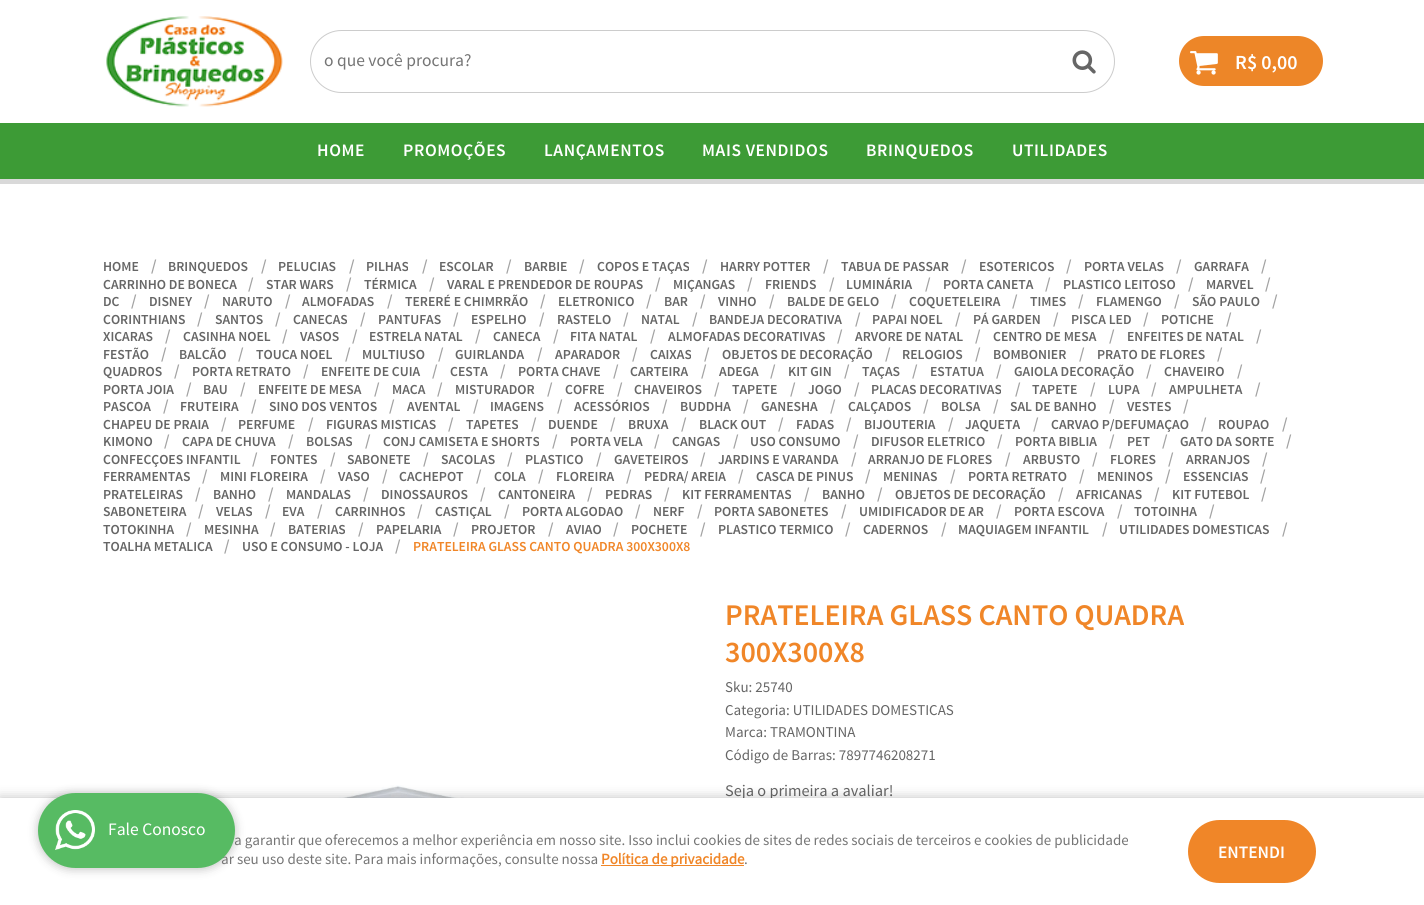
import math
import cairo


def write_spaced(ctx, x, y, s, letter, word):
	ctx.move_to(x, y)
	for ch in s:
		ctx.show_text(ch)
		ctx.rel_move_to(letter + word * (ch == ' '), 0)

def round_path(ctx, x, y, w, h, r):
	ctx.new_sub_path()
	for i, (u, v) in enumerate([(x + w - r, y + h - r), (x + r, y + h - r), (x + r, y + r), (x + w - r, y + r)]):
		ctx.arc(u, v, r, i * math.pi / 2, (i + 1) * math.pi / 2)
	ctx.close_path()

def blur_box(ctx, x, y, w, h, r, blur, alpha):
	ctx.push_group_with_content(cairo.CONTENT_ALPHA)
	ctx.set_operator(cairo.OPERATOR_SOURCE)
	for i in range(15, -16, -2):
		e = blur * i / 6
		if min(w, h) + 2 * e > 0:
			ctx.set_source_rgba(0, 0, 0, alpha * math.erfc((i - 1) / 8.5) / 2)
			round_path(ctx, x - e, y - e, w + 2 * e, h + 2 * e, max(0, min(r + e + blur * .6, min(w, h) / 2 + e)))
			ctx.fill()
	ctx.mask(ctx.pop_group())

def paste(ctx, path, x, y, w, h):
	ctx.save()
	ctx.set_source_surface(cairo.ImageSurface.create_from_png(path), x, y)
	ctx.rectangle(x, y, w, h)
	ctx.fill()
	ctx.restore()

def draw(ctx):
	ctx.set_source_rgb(1, 1, 1)
	ctx.paint()
	paste(ctx, 'media/1.png', 106, 16, 177, 91)
	round_path(ctx, 310.5, 30.5, 804, 62, 31)
	ctx.set_source_rgb(0.8, 0.8, 0.8)
	ctx.set_line_width(1)
	ctx.stroke()
	ctx.select_font_face('Source Sans Pro')
	ctx.set_font_size(17.5)
	ctx.set_source_rgb(0.459, 0.459, 0.459)
	ctx.move_to(324, 66)
	ctx.show_text('o que você procura?')
	paste(ctx, 'media/2.png', 1072, 50, 24, 24)
	ctx.set_source_rgb(0.929, 0.525, 0.157)
	round_path(ctx, 1179, 36, 144, 50, 25)
	ctx.fill()
	paste(ctx, 'media/3.png', 1190, 51, 28, 24)
	ctx.select_font_face('Source Sans Pro SemiBold')
	ctx.set_font_size(20)
	ctx.set_source_rgb(1, 1, 1)
	ctx.move_to(1235, 69)
	ctx.show_text('R$ 0,00')
	ctx.set_source_rgb(0.851, 0.851, 0.851)
	ctx.rectangle(0, 179, 1424, 5)
	ctx.fill()
	ctx.set_source_rgb(0.239, 0.608, 0.212)
	ctx.rectangle(0, 123, 1424, 56)
	ctx.fill()
	ctx.set_font_size(17.5)
	ctx.set_source_rgb(1, 1, 1)
	for x, y, s in [
		(317, 156, 'HOME'),
		(403, 156, 'PROMOÇÕES'),
		(544, 156, 'LANÇAMENTOS'),
		(702, 156, 'MAIS VENDIDOS'),
		(866, 156, 'BRINQUEDOS'),
		(1012, 156, 'UTILIDADES'),
	]:
		write_spaced(ctx, x, y, s, 0.6, 0)
	ctx.set_font_size(13.75)
	ctx.set_source_rgb(0.4, 0.4, 0.4)
	ctx.move_to(103, 271)
	ctx.show_text('HOME')
	ctx.set_font_size(16.25)
	ctx.set_source_rgb(0.639, 0.639, 0.639)
	ctx.move_to(151, 271)
	ctx.show_text('/')
	ctx.set_font_size(13.75)
	ctx.set_source_rgb(0.4, 0.4, 0.4)
	ctx.move_to(168, 271)
	ctx.show_text('BRINQUEDOS')
	ctx.set_font_size(16.25)
	ctx.set_source_rgb(0.639, 0.639, 0.639)
	ctx.move_to(261, 271)
	ctx.show_text('/')
	ctx.set_font_size(13.75)
	ctx.set_source_rgb(0.4, 0.4, 0.4)
	ctx.move_to(278, 271)
	ctx.show_text('PELUCIAS')
	ctx.set_font_size(16.25)
	ctx.set_source_rgb(0.639, 0.639, 0.639)
	ctx.move_to(349, 271)
	ctx.show_text('/')
	ctx.set_font_size(13.75)
	ctx.set_source_rgb(0.4, 0.4, 0.4)
	ctx.move_to(366, 271)
	ctx.show_text('PILHAS')
	ctx.set_font_size(16.25)
	ctx.set_source_rgb(0.639, 0.639, 0.639)
	ctx.move_to(422, 271)
	ctx.show_text('/')
	ctx.set_font_size(13.75)
	ctx.set_source_rgb(0.4, 0.4, 0.4)
	ctx.move_to(439, 271)
	ctx.show_text('ESCOLAR')
	ctx.set_font_size(16.25)
	ctx.set_source_rgb(0.639, 0.639, 0.639)
	ctx.move_to(506, 271)
	ctx.show_text('/')
	ctx.set_font_size(13.75)
	ctx.set_source_rgb(0.4, 0.4, 0.4)
	ctx.move_to(524, 271)
	ctx.show_text('BARBIE')
	ctx.set_font_size(16.25)
	ctx.set_source_rgb(0.639, 0.639, 0.639)
	ctx.move_to(579, 271)
	ctx.show_text('/')
	ctx.set_font_size(13.75)
	ctx.set_source_rgb(0.4, 0.4, 0.4)
	ctx.move_to(597, 271)
	ctx.show_text('COPOS E TAÇAS')
	ctx.set_font_size(16.25)
	ctx.set_source_rgb(0.639, 0.639, 0.639)
	ctx.move_to(702, 271)
	ctx.show_text('/')
	ctx.set_font_size(13.75)
	ctx.set_source_rgb(0.4, 0.4, 0.4)
	ctx.move_to(720, 271)
	ctx.show_text('HARRY POTTER')
	ctx.set_font_size(16.25)
	ctx.set_source_rgb(0.639, 0.639, 0.639)
	ctx.move_to(823, 271)
	ctx.show_text('/')
	ctx.set_font_size(13.75)
	ctx.set_source_rgb(0.4, 0.4, 0.4)
	ctx.move_to(841, 271)
	ctx.show_text('TABUA DE PASSAR')
	ctx.set_font_size(16.25)
	ctx.set_source_rgb(0.639, 0.639, 0.639)
	ctx.move_to(961, 271)
	ctx.show_text('/')
	ctx.set_font_size(13.75)
	ctx.set_source_rgb(0.4, 0.4, 0.4)
	ctx.move_to(979, 271)
	ctx.show_text('ESOTERICOS')
	ctx.set_font_size(16.25)
	ctx.set_source_rgb(0.639, 0.639, 0.639)
	ctx.move_to(1066, 271)
	ctx.show_text('/')
	ctx.set_font_size(13.75)
	ctx.set_source_rgb(0.4, 0.4, 0.4)
	ctx.move_to(1084, 271)
	ctx.show_text('PORTA VELAS')
	ctx.set_font_size(16.25)
	ctx.set_source_rgb(0.639, 0.639, 0.639)
	ctx.move_to(1176, 271)
	ctx.show_text('/')
	ctx.set_font_size(13.75)
	ctx.set_source_rgb(0.4, 0.4, 0.4)
	ctx.move_to(1194, 271)
	ctx.show_text('GARRAFA')
	ctx.set_font_size(16.25)
	ctx.set_source_rgb(0.639, 0.639, 0.639)
	ctx.move_to(1261, 271)
	ctx.show_text('/')
	ctx.set_font_size(13.75)
	ctx.set_source_rgb(0.4, 0.4, 0.4)
	ctx.move_to(103, 289)
	ctx.show_text('CARRINHO DE BONECA')
	ctx.set_font_size(16.25)
	ctx.set_source_rgb(0.639, 0.639, 0.639)
	ctx.move_to(248, 289)
	ctx.show_text('/')
	ctx.set_font_size(13.75)
	ctx.set_source_rgb(0.4, 0.4, 0.4)
	ctx.move_to(266, 289)
	ctx.show_text('STAR WARS')
	ctx.set_font_size(16.25)
	ctx.set_source_rgb(0.639, 0.639, 0.639)
	ctx.move_to(346, 289)
	ctx.show_text('/')
	ctx.set_font_size(13.75)
	ctx.set_source_rgb(0.4, 0.4, 0.4)
	ctx.move_to(364, 289)
	ctx.show_text('TÉRMICA')
	ctx.set_font_size(16.25)
	ctx.set_source_rgb(0.639, 0.639, 0.639)
	ctx.move_to(429, 289)
	ctx.show_text('/')
	ctx.set_font_size(13.75)
	ctx.set_source_rgb(0.4, 0.4, 0.4)
	ctx.move_to(447, 289)
	ctx.show_text('VARAL E PRENDEDOR DE ROUPAS')
	ctx.set_font_size(16.25)
	ctx.set_source_rgb(0.639, 0.639, 0.639)
	ctx.move_to(655, 289)
	ctx.show_text('/')
	ctx.set_font_size(13.75)
	ctx.set_source_rgb(0.4, 0.4, 0.4)
	ctx.move_to(673, 289)
	ctx.show_text('MIÇANGAS')
	ctx.set_font_size(16.25)
	ctx.set_source_rgb(0.639, 0.639, 0.639)
	ctx.move_to(747, 289)
	ctx.show_text('/')
	ctx.set_font_size(13.75)
	ctx.set_source_rgb(0.4, 0.4, 0.4)
	ctx.move_to(765, 289)
	ctx.show_text('FRIENDS')
	ctx.set_font_size(16.25)
	ctx.set_source_rgb(0.639, 0.639, 0.639)
	ctx.move_to(829, 289)
	ctx.show_text('/')
	ctx.set_font_size(13.75)
	ctx.set_source_rgb(0.4, 0.4, 0.4)
	ctx.move_to(846, 289)
	ctx.show_text('LUMINÁRIA')
	ctx.set_font_size(16.25)
	ctx.set_source_rgb(0.639, 0.639, 0.639)
	ctx.move_to(925, 289)
	ctx.show_text('/')
	ctx.set_font_size(13.75)
	ctx.set_source_rgb(0.4, 0.4, 0.4)
	ctx.move_to(943, 289)
	ctx.show_text('PORTA CANETA')
	ctx.set_font_size(16.25)
	ctx.set_source_rgb(0.639, 0.639, 0.639)
	ctx.move_to(1045, 289)
	ctx.show_text('/')
	ctx.set_font_size(13.75)
	ctx.set_source_rgb(0.4, 0.4, 0.4)
	ctx.move_to(1063, 289)
	ctx.show_text('PLASTICO LEITOSO')
	ctx.set_font_size(16.25)
	ctx.set_source_rgb(0.639, 0.639, 0.639)
	ctx.move_to(1188, 289)
	ctx.show_text('/')
	ctx.set_font_size(13.75)
	ctx.set_source_rgb(0.4, 0.4, 0.4)
	ctx.move_to(1206, 289)
	ctx.show_text('MARVEL')
	ctx.set_font_size(16.25)
	ctx.set_source_rgb(0.639, 0.639, 0.639)
	ctx.move_to(1265, 289)
	ctx.show_text('/')
	ctx.set_font_size(13.75)
	ctx.set_source_rgb(0.4, 0.4, 0.4)
	ctx.move_to(103, 306)
	ctx.show_text('DC')
	ctx.set_font_size(16.25)
	ctx.set_source_rgb(0.639, 0.639, 0.639)
	ctx.move_to(131, 306)
	ctx.show_text('/')
	ctx.set_font_size(13.75)
	ctx.set_source_rgb(0.4, 0.4, 0.4)
	ctx.move_to(149, 306)
	ctx.show_text('DISNEY')
	ctx.set_font_size(16.25)
	ctx.set_source_rgb(0.639, 0.639, 0.639)
	ctx.move_to(204, 306)
	ctx.show_text('/')
	ctx.set_font_size(13.75)
	ctx.set_source_rgb(0.4, 0.4, 0.4)
	ctx.move_to(222, 306)
	ctx.show_text('NARUTO')
	ctx.set_font_size(16.25)
	ctx.set_source_rgb(0.639, 0.639, 0.639)
	ctx.move_to(285, 306)
	ctx.show_text('/')
	ctx.set_font_size(13.75)
	ctx.set_source_rgb(0.4, 0.4, 0.4)
	ctx.move_to(302, 306)
	ctx.show_text('ALMOFADAS')
	ctx.set_font_size(16.25)
	ctx.set_source_rgb(0.639, 0.639, 0.639)
	ctx.move_to(387, 306)
	ctx.show_text('/')
	ctx.set_font_size(13.75)
	ctx.set_source_rgb(0.4, 0.4, 0.4)
	ctx.move_to(405, 306)
	ctx.show_text('TERERÉ E CHIMRRÃO')
	ctx.set_font_size(16.25)
	ctx.set_source_rgb(0.639, 0.639, 0.639)
	ctx.move_to(540, 306)
	ctx.show_text('/')
	ctx.set_font_size(13.75)
	ctx.set_source_rgb(0.4, 0.4, 0.4)
	ctx.move_to(558, 306)
	ctx.show_text('ELETRONICO')
	ctx.set_font_size(16.25)
	ctx.set_source_rgb(0.639, 0.639, 0.639)
	ctx.move_to(646, 306)
	ctx.show_text('/')
	ctx.set_font_size(13.75)
	ctx.set_source_rgb(0.4, 0.4, 0.4)
	ctx.move_to(664, 306)
	ctx.show_text('BAR')
	ctx.set_font_size(16.25)
	ctx.set_source_rgb(0.639, 0.639, 0.639)
	ctx.move_to(700, 306)
	ctx.show_text('/')
	ctx.set_font_size(13.75)
	ctx.set_source_rgb(0.4, 0.4, 0.4)
	ctx.move_to(718, 306)
	ctx.show_text('VINHO')
	ctx.set_font_size(16.25)
	ctx.set_source_rgb(0.639, 0.639, 0.639)
	ctx.move_to(769, 306)
	ctx.show_text('/')
	ctx.set_font_size(13.75)
	ctx.set_source_rgb(0.4, 0.4, 0.4)
	ctx.move_to(787, 306)
	ctx.show_text('BALDE DE GELO')
	ctx.set_font_size(16.25)
	ctx.set_source_rgb(0.639, 0.639, 0.639)
	ctx.move_to(891, 306)
	ctx.show_text('/')
	ctx.set_font_size(13.75)
	ctx.set_source_rgb(0.4, 0.4, 0.4)
	ctx.move_to(909, 306)
	ctx.show_text('COQUETELEIRA')
	ctx.set_font_size(16.25)
	ctx.set_source_rgb(0.639, 0.639, 0.639)
	ctx.move_to(1012, 306)
	ctx.show_text('/')
	ctx.set_font_size(13.75)
	ctx.set_source_rgb(0.4, 0.4, 0.4)
	ctx.move_to(1030, 306)
	ctx.show_text('TIMES')
	ctx.set_font_size(16.25)
	ctx.set_source_rgb(0.639, 0.639, 0.639)
	ctx.move_to(1078, 306)
	ctx.show_text('/')
	ctx.set_font_size(13.75)
	ctx.set_source_rgb(0.4, 0.4, 0.4)
	ctx.move_to(1096, 306)
	ctx.show_text('FLAMENGO')
	ctx.set_font_size(16.25)
	ctx.set_source_rgb(0.639, 0.639, 0.639)
	ctx.move_to(1174, 306)
	ctx.show_text('/')
	ctx.set_font_size(13.75)
	ctx.set_source_rgb(0.4, 0.4, 0.4)
	ctx.move_to(1192, 306)
	ctx.show_text('SÃO PAULO')
	ctx.set_font_size(16.25)
	ctx.set_source_rgb(0.639, 0.639, 0.639)
	ctx.move_to(1272, 306)
	ctx.show_text('/')
	ctx.set_font_size(13.75)
	ctx.set_source_rgb(0.4, 0.4, 0.4)
	ctx.move_to(103, 324)
	ctx.show_text('CORINTHIANS')
	ctx.set_font_size(16.25)
	ctx.set_source_rgb(0.639, 0.639, 0.639)
	ctx.move_to(197, 324)
	ctx.show_text('/')
	ctx.set_font_size(13.75)
	ctx.set_source_rgb(0.4, 0.4, 0.4)
	ctx.move_to(215, 324)
	ctx.show_text('SANTOS')
	ctx.set_font_size(16.25)
	ctx.set_source_rgb(0.639, 0.639, 0.639)
	ctx.move_to(275, 324)
	ctx.show_text('/')
	ctx.set_font_size(13.75)
	ctx.set_source_rgb(0.4, 0.4, 0.4)
	ctx.move_to(293, 324)
	ctx.show_text('CANECAS')
	ctx.set_font_size(16.25)
	ctx.set_source_rgb(0.639, 0.639, 0.639)
	ctx.move_to(360, 324)
	ctx.show_text('/')
	ctx.set_font_size(13.75)
	ctx.set_source_rgb(0.4, 0.4, 0.4)
	ctx.move_to(378, 324)
	ctx.show_text('PANTUFAS')
	ctx.set_font_size(16.25)
	ctx.set_source_rgb(0.639, 0.639, 0.639)
	ctx.move_to(453, 324)
	ctx.show_text('/')
	ctx.set_font_size(13.75)
	ctx.set_source_rgb(0.4, 0.4, 0.4)
	ctx.move_to(471, 324)
	ctx.show_text('ESPELHO')
	ctx.set_font_size(16.25)
	ctx.set_source_rgb(0.639, 0.639, 0.639)
	ctx.move_to(539, 324)
	ctx.show_text('/')
	ctx.set_font_size(13.75)
	ctx.set_source_rgb(0.4, 0.4, 0.4)
	ctx.move_to(557, 324)
	ctx.show_text('RASTELO')
	ctx.set_font_size(16.25)
	ctx.set_source_rgb(0.639, 0.639, 0.639)
	ctx.move_to(623, 324)
	ctx.show_text('/')
	ctx.set_font_size(13.75)
	ctx.set_source_rgb(0.4, 0.4, 0.4)
	ctx.move_to(641, 324)
	ctx.show_text('NATAL')
	ctx.set_font_size(16.25)
	ctx.set_source_rgb(0.639, 0.639, 0.639)
	ctx.move_to(692, 324)
	ctx.show_text('/')
	ctx.set_font_size(13.75)
	ctx.set_source_rgb(0.4, 0.4, 0.4)
	ctx.move_to(709, 324)
	ctx.show_text('BANDEJA DECORATIVA')
	ctx.set_font_size(16.25)
	ctx.set_source_rgb(0.639, 0.639, 0.639)
	ctx.move_to(855, 324)
	ctx.show_text('/')
	ctx.set_font_size(13.75)
	ctx.set_source_rgb(0.4, 0.4, 0.4)
	ctx.move_to(872, 324)
	ctx.show_text('PAPAI NOEL')
	ctx.set_font_size(16.25)
	ctx.set_source_rgb(0.639, 0.639, 0.639)
	ctx.move_to(955, 324)
	ctx.show_text('/')
	ctx.set_font_size(13.75)
	ctx.set_source_rgb(0.4, 0.4, 0.4)
	ctx.move_to(973, 324)
	ctx.show_text('PÁ GARDEN')
	ctx.set_font_size(16.25)
	ctx.set_source_rgb(0.639, 0.639, 0.639)
	ctx.move_to(1053, 324)
	ctx.show_text('/')
	ctx.set_font_size(13.75)
	ctx.set_source_rgb(0.4, 0.4, 0.4)
	ctx.move_to(1071, 324)
	ctx.show_text('PISCA LED')
	ctx.set_font_size(16.25)
	ctx.set_source_rgb(0.639, 0.639, 0.639)
	ctx.move_to(1143, 324)
	ctx.show_text('/')
	ctx.set_font_size(13.75)
	ctx.set_source_rgb(0.4, 0.4, 0.4)
	ctx.move_to(1161, 324)
	ctx.show_text('POTICHE')
	ctx.set_font_size(16.25)
	ctx.set_source_rgb(0.639, 0.639, 0.639)
	ctx.move_to(1226, 324)
	ctx.show_text('/')
	ctx.set_font_size(13.75)
	ctx.set_source_rgb(0.4, 0.4, 0.4)
	ctx.move_to(103, 341)
	ctx.show_text('XICARAS')
	ctx.set_font_size(16.25)
	ctx.set_source_rgb(0.639, 0.639, 0.639)
	ctx.move_to(165, 341)
	ctx.show_text('/')
	ctx.set_font_size(13.75)
	ctx.set_source_rgb(0.4, 0.4, 0.4)
	ctx.move_to(183, 341)
	ctx.show_text('CASINHA NOEL')
	ctx.set_font_size(16.25)
	ctx.set_source_rgb(0.639, 0.639, 0.639)
	ctx.move_to(282, 341)
	ctx.show_text('/')
	ctx.set_font_size(13.75)
	ctx.set_source_rgb(0.4, 0.4, 0.4)
	ctx.move_to(300, 341)
	ctx.show_text('VASOS')
	ctx.set_font_size(16.25)
	ctx.set_source_rgb(0.639, 0.639, 0.639)
	ctx.move_to(352, 341)
	ctx.show_text('/')
	ctx.set_font_size(13.75)
	ctx.set_source_rgb(0.4, 0.4, 0.4)
	ctx.move_to(369, 341)
	ctx.show_text('ESTRELA NATAL')
	ctx.set_font_size(16.25)
	ctx.set_source_rgb(0.639, 0.639, 0.639)
	ctx.move_to(475, 341)
	ctx.show_text('/')
	ctx.set_font_size(13.75)
	ctx.set_source_rgb(0.4, 0.4, 0.4)
	ctx.move_to(493, 341)
	ctx.show_text('CANECA')
	ctx.set_font_size(16.25)
	ctx.set_source_rgb(0.639, 0.639, 0.639)
	ctx.move_to(553, 341)
	ctx.show_text('/')
	ctx.set_font_size(13.75)
	ctx.set_source_rgb(0.4, 0.4, 0.4)
	ctx.move_to(570, 341)
	ctx.show_text('FITA NATAL')
	ctx.set_font_size(16.25)
	ctx.set_source_rgb(0.639, 0.639, 0.639)
	ctx.move_to(650, 341)
	ctx.show_text('/')
	ctx.set_font_size(13.75)
	ctx.set_source_rgb(0.4, 0.4, 0.4)
	ctx.move_to(668, 341)
	ctx.show_text('ALMOFADAS DECORATIVAS')
	ctx.set_font_size(16.25)
	ctx.set_source_rgb(0.639, 0.639, 0.639)
	ctx.move_to(837, 341)
	ctx.show_text('/')
	ctx.set_font_size(13.75)
	ctx.set_source_rgb(0.4, 0.4, 0.4)
	ctx.move_to(855, 341)
	ctx.show_text('ARVORE DE NATAL')
	ctx.set_font_size(16.25)
	ctx.set_source_rgb(0.639, 0.639, 0.639)
	ctx.move_to(975, 341)
	ctx.show_text('/')
	ctx.set_font_size(13.75)
	ctx.set_source_rgb(0.4, 0.4, 0.4)
	ctx.move_to(993, 341)
	ctx.show_text('CENTRO DE MESA')
	ctx.set_font_size(16.25)
	ctx.set_source_rgb(0.639, 0.639, 0.639)
	ctx.move_to(1109, 341)
	ctx.show_text('/')
	ctx.set_font_size(13.75)
	ctx.set_source_rgb(0.4, 0.4, 0.4)
	ctx.move_to(1127, 341)
	ctx.show_text('ENFEITES DE NATAL')
	ctx.set_font_size(16.25)
	ctx.set_source_rgb(0.639, 0.639, 0.639)
	ctx.move_to(1256, 341)
	ctx.show_text('/')
	ctx.set_font_size(13.75)
	ctx.set_source_rgb(0.4, 0.4, 0.4)
	ctx.move_to(103, 359)
	ctx.show_text('FESTÃO')
	ctx.set_font_size(16.25)
	ctx.set_source_rgb(0.639, 0.639, 0.639)
	ctx.move_to(161, 359)
	ctx.show_text('/')
	ctx.set_font_size(13.75)
	ctx.set_source_rgb(0.4, 0.4, 0.4)
	ctx.move_to(179, 359)
	ctx.show_text('BALCÃO')
	ctx.set_font_size(16.25)
	ctx.set_source_rgb(0.639, 0.639, 0.639)
	ctx.move_to(238, 359)
	ctx.show_text('/')
	ctx.set_font_size(13.75)
	ctx.set_source_rgb(0.4, 0.4, 0.4)
	ctx.move_to(256, 359)
	ctx.show_text('TOUCA NOEL')
	ctx.set_font_size(16.25)
	ctx.set_source_rgb(0.639, 0.639, 0.639)
	ctx.move_to(345, 359)
	ctx.show_text('/')
	ctx.set_font_size(13.75)
	ctx.set_source_rgb(0.4, 0.4, 0.4)
	ctx.move_to(362, 359)
	ctx.show_text('MULTIUSO')
	ctx.set_font_size(16.25)
	ctx.set_source_rgb(0.639, 0.639, 0.639)
	ctx.move_to(438, 359)
	ctx.show_text('/')
	ctx.set_font_size(13.75)
	ctx.set_source_rgb(0.4, 0.4, 0.4)
	ctx.move_to(455, 359)
	ctx.show_text('GUIRLANDA')
	ctx.set_font_size(16.25)
	ctx.set_source_rgb(0.639, 0.639, 0.639)
	ctx.move_to(537, 359)
	ctx.show_text('/')
	ctx.set_font_size(13.75)
	ctx.set_source_rgb(0.4, 0.4, 0.4)
	ctx.move_to(555, 359)
	ctx.show_text('APARADOR')
	ctx.set_font_size(16.25)
	ctx.set_source_rgb(0.639, 0.639, 0.639)
	ctx.move_to(632, 359)
	ctx.show_text('/')
	ctx.set_font_size(13.75)
	ctx.set_source_rgb(0.4, 0.4, 0.4)
	ctx.move_to(650, 359)
	ctx.show_text('CAIXAS')
	ctx.set_font_size(16.25)
	ctx.set_source_rgb(0.639, 0.639, 0.639)
	ctx.move_to(704, 359)
	ctx.show_text('/')
	ctx.set_font_size(13.75)
	ctx.set_source_rgb(0.4, 0.4, 0.4)
	ctx.move_to(722, 359)
	ctx.show_text('OBJETOS DE DECORAÇÃO')
	ctx.set_font_size(16.25)
	ctx.set_source_rgb(0.639, 0.639, 0.639)
	ctx.move_to(885, 359)
	ctx.show_text('/')
	ctx.set_font_size(13.75)
	ctx.set_source_rgb(0.4, 0.4, 0.4)
	ctx.move_to(902, 359)
	ctx.show_text('RELOGIOS')
	ctx.set_font_size(16.25)
	ctx.set_source_rgb(0.639, 0.639, 0.639)
	ctx.move_to(975, 359)
	ctx.show_text('/')
	ctx.set_font_size(13.75)
	ctx.set_source_rgb(0.4, 0.4, 0.4)
	ctx.move_to(993, 359)
	ctx.show_text('BOMBONIER')
	ctx.set_font_size(16.25)
	ctx.set_source_rgb(0.639, 0.639, 0.639)
	ctx.move_to(1079, 359)
	ctx.show_text('/')
	ctx.set_font_size(13.75)
	ctx.set_source_rgb(0.4, 0.4, 0.4)
	ctx.move_to(1097, 359)
	ctx.show_text('PRATO DE FLORES')
	ctx.set_font_size(16.25)
	ctx.set_source_rgb(0.639, 0.639, 0.639)
	ctx.move_to(1217, 359)
	ctx.show_text('/')
	ctx.set_font_size(13.75)
	ctx.set_source_rgb(0.4, 0.4, 0.4)
	ctx.move_to(103, 376)
	ctx.show_text('QUADROS')
	ctx.set_font_size(16.25)
	ctx.set_source_rgb(0.639, 0.639, 0.639)
	ctx.move_to(174, 376)
	ctx.show_text('/')
	ctx.set_font_size(13.75)
	ctx.set_source_rgb(0.4, 0.4, 0.4)
	ctx.move_to(192, 376)
	ctx.show_text('PORTA RETRATO')
	ctx.set_font_size(16.25)
	ctx.set_source_rgb(0.639, 0.639, 0.639)
	ctx.move_to(303, 376)
	ctx.show_text('/')
	ctx.set_font_size(13.75)
	ctx.set_source_rgb(0.4, 0.4, 0.4)
	ctx.move_to(321, 376)
	ctx.show_text('ENFEITE DE CUIA')
	ctx.set_font_size(16.25)
	ctx.set_source_rgb(0.639, 0.639, 0.639)
	ctx.move_to(432, 376)
	ctx.show_text('/')
	ctx.set_font_size(13.75)
	ctx.set_source_rgb(0.4, 0.4, 0.4)
	ctx.move_to(450, 376)
	ctx.show_text('CESTA')
	ctx.set_font_size(16.25)
	ctx.set_source_rgb(0.639, 0.639, 0.639)
	ctx.move_to(500, 376)
	ctx.show_text('/')
	ctx.set_font_size(13.75)
	ctx.set_source_rgb(0.4, 0.4, 0.4)
	ctx.move_to(518, 376)
	ctx.show_text('PORTA CHAVE')
	ctx.set_font_size(16.25)
	ctx.set_source_rgb(0.639, 0.639, 0.639)
	ctx.move_to(613, 376)
	ctx.show_text('/')
	ctx.set_font_size(13.75)
	ctx.set_source_rgb(0.4, 0.4, 0.4)
	ctx.move_to(630, 376)
	ctx.show_text('CARTEIRA')
	ctx.set_font_size(16.25)
	ctx.set_source_rgb(0.639, 0.639, 0.639)
	ctx.move_to(701, 376)
	ctx.show_text('/')
	ctx.set_font_size(13.75)
	ctx.set_source_rgb(0.4, 0.4, 0.4)
	ctx.move_to(719, 376)
	ctx.show_text('ADEGA')
	ctx.set_font_size(16.25)
	ctx.set_source_rgb(0.639, 0.639, 0.639)
	ctx.move_to(770, 376)
	ctx.show_text('/')
	ctx.set_font_size(13.75)
	ctx.set_source_rgb(0.4, 0.4, 0.4)
	ctx.move_to(788, 376)
	ctx.show_text('KIT GIN')
	ctx.set_font_size(16.25)
	ctx.set_source_rgb(0.639, 0.639, 0.639)
	ctx.move_to(844, 376)
	ctx.show_text('/')
	ctx.set_font_size(13.75)
	ctx.set_source_rgb(0.4, 0.4, 0.4)
	ctx.move_to(862, 376)
	ctx.show_text('TAÇAS')
	ctx.set_font_size(16.25)
	ctx.set_source_rgb(0.639, 0.639, 0.639)
	ctx.move_to(912, 376)
	ctx.show_text('/')
	ctx.set_font_size(13.75)
	ctx.set_source_rgb(0.4, 0.4, 0.4)
	ctx.move_to(930, 376)
	ctx.show_text('ESTATUA')
	ctx.set_font_size(16.25)
	ctx.set_source_rgb(0.639, 0.639, 0.639)
	ctx.move_to(996, 376)
	ctx.show_text('/')
	ctx.set_font_size(13.75)
	ctx.set_source_rgb(0.4, 0.4, 0.4)
	ctx.move_to(1014, 376)
	ctx.show_text('GAIOLA DECORAÇÃO')
	ctx.set_font_size(16.25)
	ctx.set_source_rgb(0.639, 0.639, 0.639)
	ctx.move_to(1146, 376)
	ctx.show_text('/')
	ctx.set_font_size(13.75)
	ctx.set_source_rgb(0.4, 0.4, 0.4)
	ctx.move_to(1164, 376)
	ctx.show_text('CHAVEIRO')
	ctx.set_font_size(16.25)
	ctx.set_source_rgb(0.639, 0.639, 0.639)
	ctx.move_to(1237, 376)
	ctx.show_text('/')
	ctx.set_font_size(13.75)
	ctx.set_source_rgb(0.4, 0.4, 0.4)
	ctx.move_to(103, 394)
	ctx.show_text('PORTA JOIA')
	ctx.set_font_size(16.25)
	ctx.set_source_rgb(0.639, 0.639, 0.639)
	ctx.move_to(186, 394)
	ctx.show_text('/')
	ctx.set_font_size(13.75)
	ctx.set_source_rgb(0.4, 0.4, 0.4)
	ctx.move_to(203, 394)
	ctx.show_text('BAU')
	ctx.set_font_size(16.25)
	ctx.set_source_rgb(0.639, 0.639, 0.639)
	ctx.move_to(240, 394)
	ctx.show_text('/')
	ctx.set_font_size(13.75)
	ctx.set_source_rgb(0.4, 0.4, 0.4)
	ctx.move_to(258, 394)
	ctx.show_text('ENFEITE DE MESA')
	ctx.set_font_size(16.25)
	ctx.set_source_rgb(0.639, 0.639, 0.639)
	ctx.move_to(374, 394)
	ctx.show_text('/')
	ctx.set_font_size(13.75)
	ctx.set_source_rgb(0.4, 0.4, 0.4)
	ctx.move_to(392, 394)
	ctx.show_text('MACA')
	ctx.set_font_size(16.25)
	ctx.set_source_rgb(0.639, 0.639, 0.639)
	ctx.move_to(437, 394)
	ctx.show_text('/')
	ctx.set_font_size(13.75)
	ctx.set_source_rgb(0.4, 0.4, 0.4)
	ctx.move_to(455, 394)
	ctx.show_text('MISTURADOR')
	ctx.set_font_size(16.25)
	ctx.set_source_rgb(0.639, 0.639, 0.639)
	ctx.move_to(547, 394)
	ctx.show_text('/')
	ctx.set_font_size(13.75)
	ctx.set_source_rgb(0.4, 0.4, 0.4)
	ctx.move_to(565, 394)
	ctx.show_text('COFRE')
	ctx.set_font_size(16.25)
	ctx.set_source_rgb(0.639, 0.639, 0.639)
	ctx.move_to(617, 394)
	ctx.show_text('/')
	ctx.set_font_size(13.75)
	ctx.set_source_rgb(0.4, 0.4, 0.4)
	ctx.move_to(634, 394)
	ctx.show_text('CHAVEIROS')
	ctx.set_font_size(16.25)
	ctx.set_source_rgb(0.639, 0.639, 0.639)
	ctx.move_to(714, 394)
	ctx.show_text('/')
	ctx.set_font_size(13.75)
	ctx.set_source_rgb(0.4, 0.4, 0.4)
	ctx.move_to(732, 394)
	ctx.show_text('TAPETE')
	ctx.set_font_size(16.25)
	ctx.set_source_rgb(0.639, 0.639, 0.639)
	ctx.move_to(790, 394)
	ctx.show_text('/')
	ctx.set_font_size(13.75)
	ctx.set_source_rgb(0.4, 0.4, 0.4)
	ctx.move_to(808, 394)
	ctx.show_text('JOGO')
	ctx.set_font_size(16.25)
	ctx.set_source_rgb(0.639, 0.639, 0.639)
	ctx.move_to(854, 394)
	ctx.show_text('/')
	ctx.set_font_size(13.75)
	ctx.set_source_rgb(0.4, 0.4, 0.4)
	ctx.move_to(871, 394)
	ctx.show_text('PLACAS DECORATIVAS')
	ctx.set_font_size(16.25)
	ctx.set_source_rgb(0.639, 0.639, 0.639)
	ctx.move_to(1015, 394)
	ctx.show_text('/')
	ctx.set_font_size(13.75)
	ctx.set_source_rgb(0.4, 0.4, 0.4)
	ctx.move_to(1032, 394)
	ctx.show_text('TAPETE')
	ctx.set_font_size(16.25)
	ctx.set_source_rgb(0.639, 0.639, 0.639)
	ctx.move_to(1090, 394)
	ctx.show_text('/')
	ctx.set_font_size(13.75)
	ctx.set_source_rgb(0.4, 0.4, 0.4)
	ctx.move_to(1108, 394)
	ctx.show_text('LUPA')
	ctx.set_font_size(16.25)
	ctx.set_source_rgb(0.639, 0.639, 0.639)
	ctx.move_to(1151, 394)
	ctx.show_text('/')
	ctx.set_font_size(13.75)
	ctx.set_source_rgb(0.4, 0.4, 0.4)
	ctx.move_to(1169, 394)
	ctx.show_text('AMPULHETA')
	ctx.set_font_size(16.25)
	ctx.set_source_rgb(0.639, 0.639, 0.639)
	ctx.move_to(1255, 394)
	ctx.show_text('/')
	ctx.set_font_size(13.75)
	ctx.set_source_rgb(0.4, 0.4, 0.4)
	ctx.move_to(103, 411)
	ctx.show_text('PASCOA')
	ctx.set_font_size(16.25)
	ctx.set_source_rgb(0.639, 0.639, 0.639)
	ctx.move_to(163, 411)
	ctx.show_text('/')
	ctx.set_font_size(13.75)
	ctx.set_source_rgb(0.4, 0.4, 0.4)
	ctx.move_to(180, 411)
	ctx.show_text('FRUTEIRA')
	ctx.set_font_size(16.25)
	ctx.set_source_rgb(0.639, 0.639, 0.639)
	ctx.move_to(251, 411)
	ctx.show_text('/')
	ctx.set_font_size(13.75)
	ctx.set_source_rgb(0.4, 0.4, 0.4)
	ctx.move_to(269, 411)
	ctx.show_text('SINO DOS VENTOS')
	ctx.set_font_size(16.25)
	ctx.set_source_rgb(0.639, 0.639, 0.639)
	ctx.move_to(389, 411)
	ctx.show_text('/')
	ctx.set_font_size(13.75)
	ctx.set_source_rgb(0.4, 0.4, 0.4)
	ctx.move_to(407, 411)
	ctx.show_text('AVENTAL')
	ctx.set_font_size(16.25)
	ctx.set_source_rgb(0.639, 0.639, 0.639)
	ctx.move_to(473, 411)
	ctx.show_text('/')
	ctx.set_font_size(13.75)
	ctx.set_source_rgb(0.4, 0.4, 0.4)
	ctx.move_to(490, 411)
	ctx.show_text('IMAGENS')
	ctx.set_font_size(16.25)
	ctx.set_source_rgb(0.639, 0.639, 0.639)
	ctx.move_to(557, 411)
	ctx.show_text('/')
	ctx.set_font_size(13.75)
	ctx.set_source_rgb(0.4, 0.4, 0.4)
	ctx.move_to(574, 411)
	ctx.show_text('ACESSÓRIOS')
	ctx.set_font_size(16.25)
	ctx.set_source_rgb(0.639, 0.639, 0.639)
	ctx.move_to(662, 411)
	ctx.show_text('/')
	ctx.set_font_size(13.75)
	ctx.set_source_rgb(0.4, 0.4, 0.4)
	ctx.move_to(680, 411)
	ctx.show_text('BUDDHA')
	ctx.set_font_size(16.25)
	ctx.set_source_rgb(0.639, 0.639, 0.639)
	ctx.move_to(743, 411)
	ctx.show_text('/')
	ctx.set_font_size(13.75)
	ctx.set_source_rgb(0.4, 0.4, 0.4)
	ctx.move_to(761, 411)
	ctx.show_text('GANESHA')
	ctx.set_font_size(16.25)
	ctx.set_source_rgb(0.639, 0.639, 0.639)
	ctx.move_to(830, 411)
	ctx.show_text('/')
	ctx.set_font_size(13.75)
	ctx.set_source_rgb(0.4, 0.4, 0.4)
	ctx.move_to(848, 411)
	ctx.show_text('CALÇADOS')
	ctx.set_font_size(16.25)
	ctx.set_source_rgb(0.639, 0.639, 0.639)
	ctx.move_to(923, 411)
	ctx.show_text('/')
	ctx.set_font_size(13.75)
	ctx.set_source_rgb(0.4, 0.4, 0.4)
	ctx.move_to(941, 411)
	ctx.show_text('BOLSA')
	ctx.set_font_size(16.25)
	ctx.set_source_rgb(0.639, 0.639, 0.639)
	ctx.move_to(993, 411)
	ctx.show_text('/')
	ctx.set_font_size(13.75)
	ctx.set_source_rgb(0.4, 0.4, 0.4)
	ctx.move_to(1010, 411)
	ctx.show_text('SAL DE BANHO')
	ctx.set_font_size(16.25)
	ctx.set_source_rgb(0.639, 0.639, 0.639)
	ctx.move_to(1109, 411)
	ctx.show_text('/')
	ctx.set_font_size(13.75)
	ctx.set_source_rgb(0.4, 0.4, 0.4)
	ctx.move_to(1127, 411)
	ctx.show_text('VESTES')
	ctx.set_font_size(16.25)
	ctx.set_source_rgb(0.639, 0.639, 0.639)
	ctx.move_to(1183, 411)
	ctx.show_text('/')
	ctx.set_font_size(13.75)
	ctx.set_source_rgb(0.4, 0.4, 0.4)
	ctx.move_to(103, 429)
	ctx.show_text('CHAPEU DE PRAIA')
	ctx.set_font_size(16.25)
	ctx.set_source_rgb(0.639, 0.639, 0.639)
	ctx.move_to(221, 429)
	ctx.show_text('/')
	ctx.set_font_size(13.75)
	ctx.set_source_rgb(0.4, 0.4, 0.4)
	ctx.move_to(238, 429)
	ctx.show_text('PERFUME')
	ctx.set_font_size(16.25)
	ctx.set_source_rgb(0.639, 0.639, 0.639)
	ctx.move_to(308, 429)
	ctx.show_text('/')
	ctx.set_font_size(13.75)
	ctx.set_source_rgb(0.4, 0.4, 0.4)
	ctx.move_to(326, 429)
	ctx.show_text('FIGURAS MISTICAS')
	ctx.set_font_size(16.25)
	ctx.set_source_rgb(0.639, 0.639, 0.639)
	ctx.move_to(448, 429)
	ctx.show_text('/')
	ctx.set_font_size(13.75)
	ctx.set_source_rgb(0.4, 0.4, 0.4)
	ctx.move_to(466, 429)
	ctx.show_text('TAPETES')
	ctx.set_font_size(16.25)
	ctx.set_source_rgb(0.639, 0.639, 0.639)
	ctx.move_to(531, 429)
	ctx.show_text('/')
	ctx.set_font_size(13.75)
	ctx.set_source_rgb(0.4, 0.4, 0.4)
	ctx.move_to(548, 429)
	ctx.show_text('DUENDE')
	ctx.set_font_size(16.25)
	ctx.set_source_rgb(0.639, 0.639, 0.639)
	ctx.move_to(610, 429)
	ctx.show_text('/')
	ctx.set_font_size(13.75)
	ctx.set_source_rgb(0.4, 0.4, 0.4)
	ctx.move_to(628, 429)
	ctx.show_text('BRUXA')
	ctx.set_font_size(16.25)
	ctx.set_source_rgb(0.639, 0.639, 0.639)
	ctx.move_to(681, 429)
	ctx.show_text('/')
	ctx.set_font_size(13.75)
	ctx.set_source_rgb(0.4, 0.4, 0.4)
	ctx.move_to(699, 429)
	ctx.show_text('BLACK OUT')
	ctx.set_font_size(16.25)
	ctx.set_source_rgb(0.639, 0.639, 0.639)
	ctx.move_to(778, 429)
	ctx.show_text('/')
	ctx.set_font_size(13.75)
	ctx.set_source_rgb(0.4, 0.4, 0.4)
	ctx.move_to(796, 429)
	ctx.show_text('FADAS')
	ctx.set_font_size(16.25)
	ctx.set_source_rgb(0.639, 0.639, 0.639)
	ctx.move_to(846, 429)
	ctx.show_text('/')
	ctx.set_font_size(13.75)
	ctx.set_source_rgb(0.4, 0.4, 0.4)
	ctx.move_to(864, 429)
	ctx.show_text('BIJOUTERIA')
	ctx.set_font_size(16.25)
	ctx.set_source_rgb(0.639, 0.639, 0.639)
	ctx.move_to(948, 429)
	ctx.show_text('/')
	ctx.set_font_size(13.75)
	ctx.set_source_rgb(0.4, 0.4, 0.4)
	ctx.move_to(965, 429)
	ctx.show_text('JAQUETA')
	ctx.set_font_size(16.25)
	ctx.set_source_rgb(0.639, 0.639, 0.639)
	ctx.move_to(1033, 429)
	ctx.show_text('/')
	ctx.set_font_size(13.75)
	ctx.set_source_rgb(0.4, 0.4, 0.4)
	ctx.move_to(1051, 429)
	ctx.show_text('CARVAO P/DEFUMAÇAO')
	ctx.set_font_size(16.25)
	ctx.set_source_rgb(0.639, 0.639, 0.639)
	ctx.move_to(1201, 429)
	ctx.show_text('/')
	ctx.set_font_size(13.75)
	ctx.set_source_rgb(0.4, 0.4, 0.4)
	ctx.move_to(1218, 429)
	ctx.show_text('ROUPAO')
	ctx.set_font_size(16.25)
	ctx.set_source_rgb(0.639, 0.639, 0.639)
	ctx.move_to(1282, 429)
	ctx.show_text('/')
	ctx.set_font_size(13.75)
	ctx.set_source_rgb(0.4, 0.4, 0.4)
	ctx.move_to(103, 446)
	ctx.show_text('KIMONO')
	ctx.set_font_size(16.25)
	ctx.set_source_rgb(0.639, 0.639, 0.639)
	ctx.move_to(164, 446)
	ctx.show_text('/')
	ctx.set_font_size(13.75)
	ctx.set_source_rgb(0.4, 0.4, 0.4)
	ctx.move_to(182, 446)
	ctx.show_text('CAPA DE CHUVA')
	ctx.set_font_size(16.25)
	ctx.set_source_rgb(0.639, 0.639, 0.639)
	ctx.move_to(288, 446)
	ctx.show_text('/')
	ctx.set_font_size(13.75)
	ctx.set_source_rgb(0.4, 0.4, 0.4)
	ctx.move_to(306, 446)
	ctx.show_text('BOLSAS')
	ctx.set_font_size(16.25)
	ctx.set_source_rgb(0.639, 0.639, 0.639)
	ctx.move_to(365, 446)
	ctx.show_text('/')
	ctx.set_font_size(13.75)
	ctx.set_source_rgb(0.4, 0.4, 0.4)
	ctx.move_to(383, 446)
	ctx.show_text('CONJ CAMISETA E SHORTS')
	ctx.set_font_size(16.25)
	ctx.set_source_rgb(0.639, 0.639, 0.639)
	ctx.move_to(552, 446)
	ctx.show_text('/')
	ctx.set_font_size(13.75)
	ctx.set_source_rgb(0.4, 0.4, 0.4)
	ctx.move_to(570, 446)
	ctx.show_text('PORTA VELA')
	ctx.set_font_size(16.25)
	ctx.set_source_rgb(0.639, 0.639, 0.639)
	ctx.move_to(654, 446)
	ctx.show_text('/')
	ctx.set_font_size(13.75)
	ctx.set_source_rgb(0.4, 0.4, 0.4)
	ctx.move_to(672, 446)
	ctx.show_text('CANGAS')
	ctx.set_font_size(16.25)
	ctx.set_source_rgb(0.639, 0.639, 0.639)
	ctx.move_to(733, 446)
	ctx.show_text('/')
	ctx.set_font_size(13.75)
	ctx.set_source_rgb(0.4, 0.4, 0.4)
	ctx.move_to(750, 446)
	ctx.show_text('USO CONSUMO')
	ctx.set_font_size(16.25)
	ctx.set_source_rgb(0.639, 0.639, 0.639)
	ctx.move_to(853, 446)
	ctx.show_text('/')
	ctx.set_font_size(13.75)
	ctx.set_source_rgb(0.4, 0.4, 0.4)
	ctx.move_to(871, 446)
	ctx.show_text('DIFUSOR ELETRICO')
	ctx.set_font_size(16.25)
	ctx.set_source_rgb(0.639, 0.639, 0.639)
	ctx.move_to(997, 446)
	ctx.show_text('/')
	ctx.set_font_size(13.75)
	ctx.set_source_rgb(0.4, 0.4, 0.4)
	ctx.move_to(1015, 446)
	ctx.show_text('PORTA BIBLIA')
	ctx.set_font_size(16.25)
	ctx.set_source_rgb(0.639, 0.639, 0.639)
	ctx.move_to(1109, 446)
	ctx.show_text('/')
	ctx.set_font_size(13.75)
	ctx.set_source_rgb(0.4, 0.4, 0.4)
	ctx.move_to(1127, 446)
	ctx.show_text('PET')
	ctx.set_font_size(16.25)
	ctx.set_source_rgb(0.639, 0.639, 0.639)
	ctx.move_to(1162, 446)
	ctx.show_text('/')
	ctx.set_font_size(13.75)
	ctx.set_source_rgb(0.4, 0.4, 0.4)
	ctx.move_to(1180, 446)
	ctx.show_text('GATO DA SORTE')
	ctx.set_font_size(16.25)
	ctx.set_source_rgb(0.639, 0.639, 0.639)
	ctx.move_to(1286, 446)
	ctx.show_text('/')
	ctx.set_font_size(13.75)
	ctx.set_source_rgb(0.4, 0.4, 0.4)
	ctx.move_to(103, 464)
	ctx.show_text('CONFECÇOES INFANTIL')
	ctx.set_font_size(16.25)
	ctx.set_source_rgb(0.639, 0.639, 0.639)
	ctx.move_to(252, 464)
	ctx.show_text('/')
	ctx.set_font_size(13.75)
	ctx.set_source_rgb(0.4, 0.4, 0.4)
	ctx.move_to(270, 464)
	ctx.show_text('FONTES')
	ctx.set_font_size(16.25)
	ctx.set_source_rgb(0.639, 0.639, 0.639)
	ctx.move_to(330, 464)
	ctx.show_text('/')
	ctx.set_font_size(13.75)
	ctx.set_source_rgb(0.4, 0.4, 0.4)
	ctx.move_to(347, 464)
	ctx.show_text('SABONETE')
	ctx.set_font_size(16.25)
	ctx.set_source_rgb(0.639, 0.639, 0.639)
	ctx.move_to(423, 464)
	ctx.show_text('/')
	ctx.set_font_size(13.75)
	ctx.set_source_rgb(0.4, 0.4, 0.4)
	ctx.move_to(441, 464)
	ctx.show_text('SACOLAS')
	ctx.set_font_size(16.25)
	ctx.set_source_rgb(0.639, 0.639, 0.639)
	ctx.move_to(507, 464)
	ctx.show_text('/')
	ctx.set_font_size(13.75)
	ctx.set_source_rgb(0.4, 0.4, 0.4)
	ctx.move_to(525, 464)
	ctx.show_text('PLASTICO')
	ctx.set_font_size(16.25)
	ctx.set_source_rgb(0.639, 0.639, 0.639)
	ctx.move_to(596, 464)
	ctx.show_text('/')
	ctx.set_font_size(13.75)
	ctx.set_source_rgb(0.4, 0.4, 0.4)
	ctx.move_to(614, 464)
	ctx.show_text('GAVETEIROS')
	ctx.set_font_size(16.25)
	ctx.set_source_rgb(0.639, 0.639, 0.639)
	ctx.move_to(700, 464)
	ctx.show_text('/')
	ctx.set_font_size(13.75)
	ctx.set_source_rgb(0.4, 0.4, 0.4)
	ctx.move_to(718, 464)
	ctx.show_text('JARDINS E VARANDA')
	ctx.set_font_size(16.25)
	ctx.set_source_rgb(0.639, 0.639, 0.639)
	ctx.move_to(851, 464)
	ctx.show_text('/')
	ctx.set_font_size(13.75)
	ctx.set_source_rgb(0.4, 0.4, 0.4)
	ctx.move_to(868, 464)
	ctx.show_text('ARRANJO DE FLORES')
	ctx.set_font_size(16.25)
	ctx.set_source_rgb(0.639, 0.639, 0.639)
	ctx.move_to(1005, 464)
	ctx.show_text('/')
	ctx.set_font_size(13.75)
	ctx.set_source_rgb(0.4, 0.4, 0.4)
	ctx.move_to(1023, 464)
	ctx.show_text('ARBUSTO')
	ctx.set_font_size(16.25)
	ctx.set_source_rgb(0.639, 0.639, 0.639)
	ctx.move_to(1092, 464)
	ctx.show_text('/')
	ctx.set_font_size(13.75)
	ctx.set_source_rgb(0.4, 0.4, 0.4)
	ctx.move_to(1110, 464)
	ctx.show_text('FLORES')
	ctx.set_font_size(16.25)
	ctx.set_source_rgb(0.639, 0.639, 0.639)
	ctx.move_to(1168, 464)
	ctx.show_text('/')
	ctx.set_font_size(13.75)
	ctx.set_source_rgb(0.4, 0.4, 0.4)
	ctx.move_to(1186, 464)
	ctx.show_text('ARRANJOS')
	ctx.set_font_size(16.25)
	ctx.set_source_rgb(0.639, 0.639, 0.639)
	ctx.move_to(1262, 464)
	ctx.show_text('/')
	ctx.set_font_size(13.75)
	ctx.set_source_rgb(0.4, 0.4, 0.4)
	ctx.move_to(103, 481)
	ctx.show_text('FERRAMENTAS')
	ctx.set_font_size(16.25)
	ctx.set_source_rgb(0.639, 0.639, 0.639)
	ctx.move_to(202, 481)
	ctx.show_text('/')
	ctx.set_font_size(13.75)
	ctx.set_source_rgb(0.4, 0.4, 0.4)
	ctx.move_to(220, 481)
	ctx.show_text('MINI FLOREIRA')
	ctx.set_font_size(16.25)
	ctx.set_source_rgb(0.639, 0.639, 0.639)
	ctx.move_to(320, 481)
	ctx.show_text('/')
	ctx.set_font_size(13.75)
	ctx.set_source_rgb(0.4, 0.4, 0.4)
	ctx.move_to(338, 481)
	ctx.show_text('VASO')
	ctx.set_font_size(16.25)
	ctx.set_source_rgb(0.639, 0.639, 0.639)
	ctx.move_to(382, 481)
	ctx.show_text('/')
	ctx.set_font_size(13.75)
	ctx.set_source_rgb(0.4, 0.4, 0.4)
	ctx.move_to(399, 481)
	ctx.show_text('CACHEPOT')
	ctx.set_font_size(16.25)
	ctx.set_source_rgb(0.639, 0.639, 0.639)
	ctx.move_to(476, 481)
	ctx.show_text('/')
	ctx.set_font_size(13.75)
	ctx.set_source_rgb(0.4, 0.4, 0.4)
	ctx.move_to(494, 481)
	ctx.show_text('COLA')
	ctx.set_font_size(16.25)
	ctx.set_source_rgb(0.639, 0.639, 0.639)
	ctx.move_to(538, 481)
	ctx.show_text('/')
	ctx.set_font_size(13.75)
	ctx.set_source_rgb(0.4, 0.4, 0.4)
	ctx.move_to(556, 481)
	ctx.show_text('FLOREIRA')
	ctx.set_font_size(16.25)
	ctx.set_source_rgb(0.639, 0.639, 0.639)
	ctx.move_to(626, 481)
	ctx.show_text('/')
	ctx.set_font_size(13.75)
	ctx.set_source_rgb(0.4, 0.4, 0.4)
	ctx.move_to(644, 481)
	ctx.show_text('PEDRA/ AREIA')
	ctx.set_font_size(16.25)
	ctx.set_source_rgb(0.639, 0.639, 0.639)
	ctx.move_to(738, 481)
	ctx.show_text('/')
	ctx.set_font_size(13.75)
	ctx.set_source_rgb(0.4, 0.4, 0.4)
	ctx.move_to(756, 481)
	ctx.show_text('CASCA DE PINUS')
	ctx.set_font_size(16.25)
	ctx.set_source_rgb(0.639, 0.639, 0.639)
	ctx.move_to(865, 481)
	ctx.show_text('/')
	ctx.set_font_size(13.75)
	ctx.set_source_rgb(0.4, 0.4, 0.4)
	ctx.move_to(883, 481)
	ctx.show_text('MENINAS')
	ctx.set_font_size(16.25)
	ctx.set_source_rgb(0.639, 0.639, 0.639)
	ctx.move_to(950, 481)
	ctx.show_text('/')
	ctx.set_font_size(13.75)
	ctx.set_source_rgb(0.4, 0.4, 0.4)
	ctx.move_to(968, 481)
	ctx.show_text('PORTA RETRATO')
	ctx.set_font_size(16.25)
	ctx.set_source_rgb(0.639, 0.639, 0.639)
	ctx.move_to(1079, 481)
	ctx.show_text('/')
	ctx.set_font_size(13.75)
	ctx.set_source_rgb(0.4, 0.4, 0.4)
	ctx.move_to(1097, 481)
	ctx.show_text('MENINOS')
	ctx.set_font_size(16.25)
	ctx.set_source_rgb(0.639, 0.639, 0.639)
	ctx.move_to(1165, 481)
	ctx.show_text('/')
	ctx.set_font_size(13.75)
	ctx.set_source_rgb(0.4, 0.4, 0.4)
	ctx.move_to(1183, 481)
	ctx.show_text('ESSENCIAS')
	ctx.set_font_size(16.25)
	ctx.set_source_rgb(0.639, 0.639, 0.639)
	ctx.move_to(1260, 481)
	ctx.show_text('/')
	ctx.set_font_size(13.75)
	ctx.set_source_rgb(0.4, 0.4, 0.4)
	ctx.move_to(103, 499)
	ctx.show_text('PRATELEIRAS')
	ctx.set_font_size(16.25)
	ctx.set_source_rgb(0.639, 0.639, 0.639)
	ctx.move_to(195, 499)
	ctx.show_text('/')
	ctx.set_font_size(13.75)
	ctx.set_source_rgb(0.4, 0.4, 0.4)
	ctx.move_to(213, 499)
	ctx.show_text('BANHO')
	ctx.set_font_size(16.25)
	ctx.set_source_rgb(0.639, 0.639, 0.639)
	ctx.move_to(268, 499)
	ctx.show_text('/')
	ctx.set_font_size(13.75)
	ctx.set_source_rgb(0.4, 0.4, 0.4)
	ctx.move_to(286, 499)
	ctx.show_text('MANDALAS')
	ctx.set_font_size(16.25)
	ctx.set_source_rgb(0.639, 0.639, 0.639)
	ctx.move_to(363, 499)
	ctx.show_text('/')
	ctx.set_font_size(13.75)
	ctx.set_source_rgb(0.4, 0.4, 0.4)
	ctx.move_to(381, 499)
	ctx.show_text('DINOSSAUROS')
	ctx.set_font_size(16.25)
	ctx.set_source_rgb(0.639, 0.639, 0.639)
	ctx.move_to(480, 499)
	ctx.show_text('/')
	ctx.set_font_size(13.75)
	ctx.set_source_rgb(0.4, 0.4, 0.4)
	ctx.move_to(498, 499)
	ctx.show_text('CANTONEIRA')
	ctx.set_font_size(16.25)
	ctx.set_source_rgb(0.639, 0.639, 0.639)
	ctx.move_to(587, 499)
	ctx.show_text('/')
	ctx.set_font_size(13.75)
	ctx.set_source_rgb(0.4, 0.4, 0.4)
	ctx.move_to(605, 499)
	ctx.show_text('PEDRAS')
	ctx.set_font_size(16.25)
	ctx.set_source_rgb(0.639, 0.639, 0.639)
	ctx.move_to(664, 499)
	ctx.show_text('/')
	ctx.set_font_size(13.75)
	ctx.set_source_rgb(0.4, 0.4, 0.4)
	ctx.move_to(682, 499)
	ctx.show_text('KIT FERRAMENTAS')
	ctx.set_font_size(16.25)
	ctx.set_source_rgb(0.639, 0.639, 0.639)
	ctx.move_to(804, 499)
	ctx.show_text('/')
	ctx.set_font_size(13.75)
	ctx.set_source_rgb(0.4, 0.4, 0.4)
	ctx.move_to(822, 499)
	ctx.show_text('BANHO')
	ctx.set_font_size(16.25)
	ctx.set_source_rgb(0.639, 0.639, 0.639)
	ctx.move_to(877, 499)
	ctx.show_text('/')
	ctx.set_font_size(13.75)
	ctx.set_source_rgb(0.4, 0.4, 0.4)
	ctx.move_to(895, 499)
	ctx.show_text('OBJETOS DE DECORAÇÃO')
	ctx.set_font_size(16.25)
	ctx.set_source_rgb(0.639, 0.639, 0.639)
	ctx.move_to(1058, 499)
	ctx.show_text('/')
	ctx.set_font_size(13.75)
	ctx.set_source_rgb(0.4, 0.4, 0.4)
	ctx.move_to(1076, 499)
	ctx.show_text('AFRICANAS')
	ctx.set_font_size(16.25)
	ctx.set_source_rgb(0.639, 0.639, 0.639)
	ctx.move_to(1154, 499)
	ctx.show_text('/')
	ctx.set_font_size(13.75)
	ctx.set_source_rgb(0.4, 0.4, 0.4)
	ctx.move_to(1172, 499)
	ctx.show_text('KIT FUTEBOL')
	ctx.set_font_size(16.25)
	ctx.set_source_rgb(0.639, 0.639, 0.639)
	ctx.move_to(1261, 499)
	ctx.show_text('/')
	ctx.set_font_size(13.75)
	ctx.set_source_rgb(0.4, 0.4, 0.4)
	ctx.move_to(103, 516)
	ctx.show_text('SABONETEIRA')
	ctx.set_font_size(16.25)
	ctx.set_source_rgb(0.639, 0.639, 0.639)
	ctx.move_to(198, 516)
	ctx.show_text('/')
	ctx.set_font_size(13.75)
	ctx.set_source_rgb(0.4, 0.4, 0.4)
	ctx.move_to(216, 516)
	ctx.show_text('VELAS')
	ctx.set_font_size(16.25)
	ctx.set_source_rgb(0.639, 0.639, 0.639)
	ctx.move_to(265, 516)
	ctx.show_text('/')
	ctx.set_font_size(13.75)
	ctx.set_source_rgb(0.4, 0.4, 0.4)
	ctx.move_to(282, 516)
	ctx.show_text('EVA')
	ctx.set_font_size(16.25)
	ctx.set_source_rgb(0.639, 0.639, 0.639)
	ctx.move_to(317, 516)
	ctx.show_text('/')
	ctx.set_font_size(13.75)
	ctx.set_source_rgb(0.4, 0.4, 0.4)
	ctx.move_to(335, 516)
	ctx.show_text('CARRINHOS')
	ctx.set_font_size(16.25)
	ctx.set_source_rgb(0.639, 0.639, 0.639)
	ctx.move_to(417, 516)
	ctx.show_text('/')
	ctx.set_font_size(13.75)
	ctx.set_source_rgb(0.4, 0.4, 0.4)
	ctx.move_to(435, 516)
	ctx.show_text('CASTIÇAL')
	ctx.set_font_size(16.25)
	ctx.set_source_rgb(0.639, 0.639, 0.639)
	ctx.move_to(504, 516)
	ctx.show_text('/')
	ctx.set_font_size(13.75)
	ctx.set_source_rgb(0.4, 0.4, 0.4)
	ctx.move_to(522, 516)
	ctx.show_text('PORTA ALGODAO')
	ctx.set_font_size(16.25)
	ctx.set_source_rgb(0.639, 0.639, 0.639)
	ctx.move_to(635, 516)
	ctx.show_text('/')
	ctx.set_font_size(13.75)
	ctx.set_source_rgb(0.4, 0.4, 0.4)
	ctx.move_to(653, 516)
	ctx.show_text('NERF')
	ctx.set_font_size(16.25)
	ctx.set_source_rgb(0.639, 0.639, 0.639)
	ctx.move_to(697, 516)
	ctx.show_text('/')
	ctx.set_font_size(13.75)
	ctx.set_source_rgb(0.4, 0.4, 0.4)
	ctx.move_to(714, 516)
	ctx.show_text('PORTA SABONETES')
	ctx.set_font_size(16.25)
	ctx.set_source_rgb(0.639, 0.639, 0.639)
	ctx.move_to(841, 516)
	ctx.show_text('/')
	ctx.set_font_size(13.75)
	ctx.set_source_rgb(0.4, 0.4, 0.4)
	ctx.move_to(859, 516)
	ctx.show_text('UMIDIFICADOR DE AR')
	ctx.set_font_size(16.25)
	ctx.set_source_rgb(0.639, 0.639, 0.639)
	ctx.move_to(996, 516)
	ctx.show_text('/')
	ctx.set_font_size(13.75)
	ctx.set_source_rgb(0.4, 0.4, 0.4)
	ctx.move_to(1014, 516)
	ctx.show_text('PORTA ESCOVA')
	ctx.set_font_size(16.25)
	ctx.set_source_rgb(0.639, 0.639, 0.639)
	ctx.move_to(1117, 516)
	ctx.show_text('/')
	ctx.set_font_size(13.75)
	ctx.set_source_rgb(0.4, 0.4, 0.4)
	ctx.move_to(1134, 516)
	ctx.show_text('TOTOINHA')
	ctx.set_font_size(16.25)
	ctx.set_source_rgb(0.639, 0.639, 0.639)
	ctx.move_to(1209, 516)
	ctx.show_text('/')
	ctx.set_font_size(13.75)
	ctx.set_source_rgb(0.4, 0.4, 0.4)
	ctx.move_to(103, 534)
	ctx.show_text('TOTOKINHA')
	ctx.set_font_size(16.25)
	ctx.set_source_rgb(0.639, 0.639, 0.639)
	ctx.move_to(186, 534)
	ctx.show_text('/')
	ctx.set_font_size(13.75)
	ctx.set_source_rgb(0.4, 0.4, 0.4)
	ctx.move_to(204, 534)
	ctx.show_text('MESINHA')
	ctx.set_font_size(16.25)
	ctx.set_source_rgb(0.639, 0.639, 0.639)
	ctx.move_to(270, 534)
	ctx.show_text('/')
	ctx.set_font_size(13.75)
	ctx.set_source_rgb(0.4, 0.4, 0.4)
	ctx.move_to(288, 534)
	ctx.show_text('BATERIAS')
	ctx.set_font_size(16.25)
	ctx.set_source_rgb(0.639, 0.639, 0.639)
	ctx.move_to(358, 534)
	ctx.show_text('/')
	ctx.set_font_size(13.75)
	ctx.set_source_rgb(0.4, 0.4, 0.4)
	ctx.move_to(376, 534)
	ctx.show_text('PAPELARIA')
	ctx.set_font_size(16.25)
	ctx.set_source_rgb(0.639, 0.639, 0.639)
	ctx.move_to(453, 534)
	ctx.show_text('/')
	ctx.set_font_size(13.75)
	ctx.set_source_rgb(0.4, 0.4, 0.4)
	ctx.move_to(471, 534)
	ctx.show_text('PROJETOR')
	ctx.set_font_size(16.25)
	ctx.set_source_rgb(0.639, 0.639, 0.639)
	ctx.move_to(548, 534)
	ctx.show_text('/')
	ctx.set_font_size(13.75)
	ctx.set_source_rgb(0.4, 0.4, 0.4)
	ctx.move_to(566, 534)
	ctx.show_text('AVIAO')
	ctx.set_font_size(16.25)
	ctx.set_source_rgb(0.639, 0.639, 0.639)
	ctx.move_to(613, 534)
	ctx.show_text('/')
	ctx.set_font_size(13.75)
	ctx.set_source_rgb(0.4, 0.4, 0.4)
	ctx.move_to(631, 534)
	ctx.show_text('POCHETE')
	ctx.set_font_size(16.25)
	ctx.set_source_rgb(0.639, 0.639, 0.639)
	ctx.move_to(700, 534)
	ctx.show_text('/')
	ctx.set_font_size(13.75)
	ctx.set_source_rgb(0.4, 0.4, 0.4)
	ctx.move_to(718, 534)
	ctx.show_text('PLASTICO TERMICO')
	ctx.set_font_size(16.25)
	ctx.set_source_rgb(0.639, 0.639, 0.639)
	ctx.move_to(845, 534)
	ctx.show_text('/')
	ctx.set_font_size(13.75)
	ctx.set_source_rgb(0.4, 0.4, 0.4)
	ctx.move_to(863, 534)
	ctx.show_text('CADERNOS')
	ctx.set_font_size(16.25)
	ctx.set_source_rgb(0.639, 0.639, 0.639)
	ctx.move_to(941, 534)
	ctx.show_text('/')
	ctx.set_font_size(13.75)
	ctx.set_source_rgb(0.4, 0.4, 0.4)
	ctx.move_to(958, 534)
	ctx.show_text('MAQUIAGEM INFANTIL')
	ctx.set_font_size(16.25)
	ctx.set_source_rgb(0.639, 0.639, 0.639)
	ctx.move_to(1102, 534)
	ctx.show_text('/')
	ctx.set_font_size(13.75)
	ctx.set_source_rgb(0.4, 0.4, 0.4)
	ctx.move_to(1119, 534)
	ctx.show_text('UTILIDADES DOMESTICAS')
	ctx.set_font_size(16.25)
	ctx.set_source_rgb(0.639, 0.639, 0.639)
	ctx.move_to(1282, 534)
	ctx.show_text('/')
	ctx.set_font_size(13.75)
	ctx.set_source_rgb(0.4, 0.4, 0.4)
	ctx.move_to(103, 551)
	ctx.show_text('TOALHA METALICA')
	ctx.set_font_size(16.25)
	ctx.set_source_rgb(0.639, 0.639, 0.639)
	ctx.move_to(224, 551)
	ctx.show_text('/')
	ctx.set_font_size(13.75)
	ctx.set_source_rgb(0.4, 0.4, 0.4)
	ctx.move_to(242, 551)
	ctx.show_text('USO E CONSUMO - LOJA')
	ctx.set_font_size(16.25)
	ctx.set_source_rgb(0.639, 0.639, 0.639)
	ctx.move_to(395, 551)
	ctx.show_text('/')
	ctx.set_font_size(13.75)
	ctx.set_source_rgb(0.941, 0.525, 0.157)
	ctx.move_to(413, 551)
	ctx.show_text('PRATELEIRA GLASS CANTO QUADRA 300X300X8')
	paste(ctx, 'media/4.png', 107, 785, 588, 13)
	ctx.set_font_size(30)
	ctx.move_to(725, 625)
	ctx.show_text('PRATELEIRA GLASS CANTO QUADRA')
	ctx.move_to(725, 662)
	ctx.show_text('300X300X8')
	ctx.select_font_face('Source Sans Pro')
	ctx.set_font_size(15)
	ctx.set_source_rgb(0.4, 0.4, 0.4)
	for x, y, s in [
		(725, 692, 'Sku: 25740'),
		(725, 715, 'Categoria: UTILIDADES DOMESTICAS'),
		(725, 737, 'Marca: TRAMONTINA'),
		(725, 760, 'Código de Barras: 7897746208271'),
	]:
		ctx.move_to(x, y)
		ctx.show_text(s)
	ctx.set_font_size(16.25)
	ctx.move_to(725, 796)
	ctx.show_text('Seja o primeira a avaliar!')
	ctx.set_source_rgb(0, 0, 0)
	blur_box(ctx, 0, 798, 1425, 107, 0, 6, 0.25)
	ctx.set_source_rgb(1, 1, 1)
	ctx.rectangle(0, 798, 1424, 107)
	ctx.fill()
	ctx.set_source_rgb(0, 0, 0)
	blur_box(ctx, 38, 794, 197, 75, 37.5, 5, 0.25)
	ctx.set_font_size(15)
	ctx.set_source_rgb(0.459, 0.459, 0.459)
	ctx.move_to(221, 864)
	ctx.show_text('ar seu uso deste site. Para mais informações, consulte nossa')
	ctx.set_source_rgb(0.341, 0.733, 0.388)
	round_path(ctx, 38, 793, 197, 75, 37.5)
	ctx.fill()
	paste(ctx, 'media/5.png', 55, 810, 40, 40)
	ctx.set_font_size(17.5)
	ctx.set_source_rgb(1, 1, 1)
	ctx.move_to(108, 835)
	ctx.show_text('Fale Conosco')
	ctx.set_font_size(15)
	ctx.set_source_rgb(0.459, 0.459, 0.459)
	ctx.move_to(234, 845)
	ctx.show_text('a garantir que oferecemos a melhor experiência em nosso site. Isso inclui cookies de sites de redes sociais de terceiros e cookies de publicidade')
	ctx.set_source_rgb(0.941, 0.525, 0.157)
	ctx.rectangle(601, 865, 143, 1)
	ctx.fill()
	ctx.select_font_face('Source Sans Pro', cairo.FONT_SLANT_NORMAL, cairo.FONT_WEIGHT_BOLD)
	ctx.move_to(601, 864)
	ctx.show_text('Política de privacidade')
	ctx.select_font_face('Source Sans Pro')
	ctx.set_source_rgb(0.459, 0.459, 0.459)
	ctx.move_to(744, 864)
	ctx.show_text('.')
	ctx.set_source_rgb(0.941, 0.525, 0.157)
	round_path(ctx, 1188, 820, 128, 63, 31.5)
	ctx.fill()
	ctx.select_font_face('Source Sans Pro SemiBold')
	ctx.set_font_size(17.5)
	ctx.set_source_rgb(1, 1, 1)
	ctx.move_to(1218, 858)
	ctx.show_text('ENTENDI')


surface = cairo.ImageSurface(cairo.FORMAT_RGB24, 1424, 905)
ctx = cairo.Context(surface)
options = cairo.FontOptions()
options.set_hint_metrics(cairo.HINT_METRICS_OFF)
options.set_hint_style(cairo.HINT_STYLE_NONE)
ctx.set_font_options(options)
ctx.set_miter_limit(4)
draw(ctx)
surface.write_to_png('image.png')
